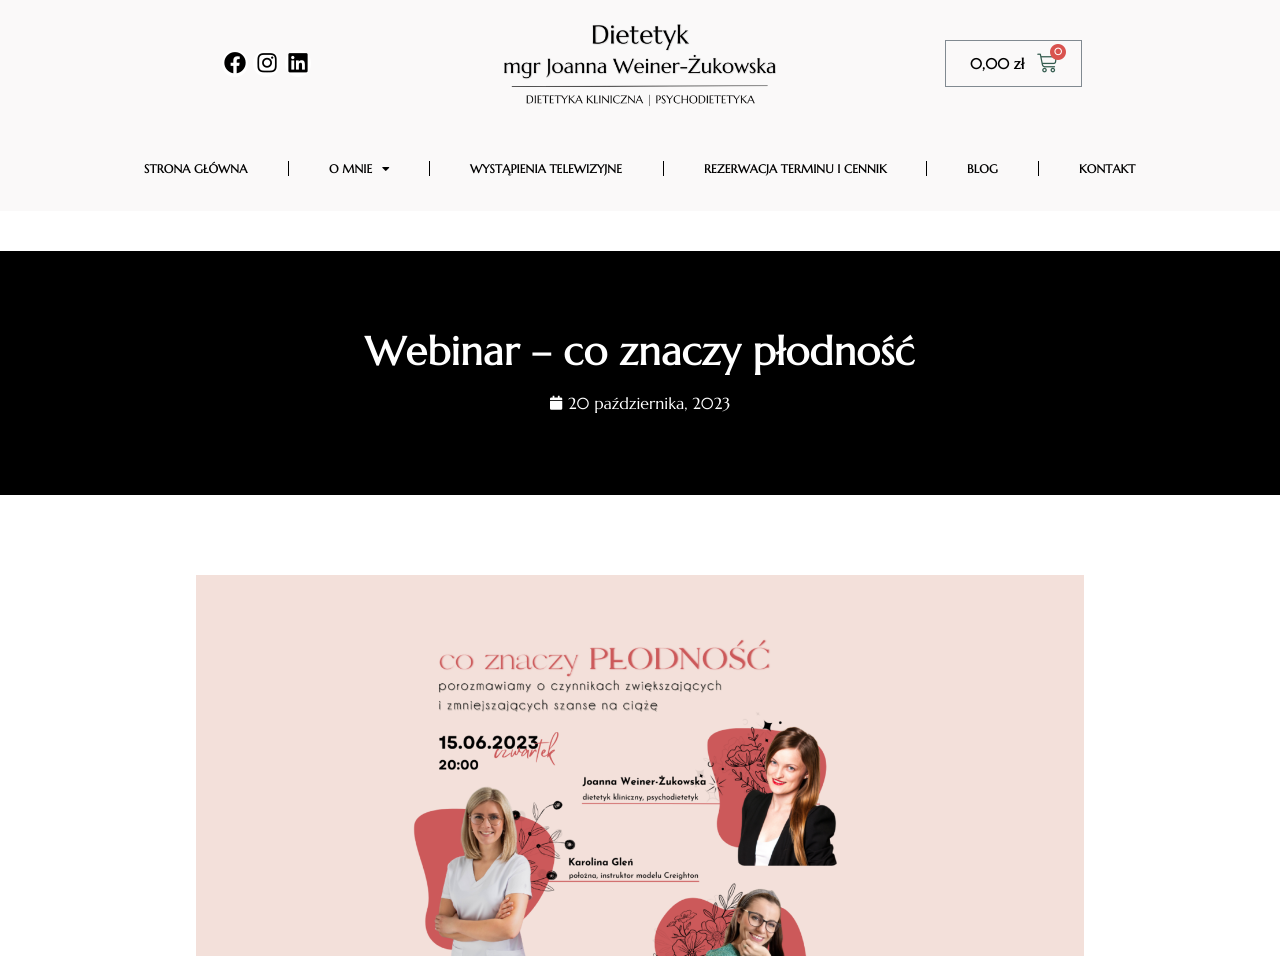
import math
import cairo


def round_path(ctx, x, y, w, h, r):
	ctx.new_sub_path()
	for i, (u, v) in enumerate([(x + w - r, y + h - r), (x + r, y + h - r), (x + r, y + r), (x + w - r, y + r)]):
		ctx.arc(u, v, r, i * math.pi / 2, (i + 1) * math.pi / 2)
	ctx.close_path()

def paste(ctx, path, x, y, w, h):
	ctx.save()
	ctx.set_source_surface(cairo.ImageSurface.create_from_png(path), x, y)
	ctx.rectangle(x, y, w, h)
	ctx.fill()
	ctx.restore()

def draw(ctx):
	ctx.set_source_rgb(1, 1, 1)
	ctx.paint()
	ctx.set_source_rgb(0.98, 0.973, 0.976)
	ctx.rectangle(0, 0, 1280, 211)
	ctx.fill()
	ctx.set_source_rgb(1, 1, 1)
	round_path(ctx, 222, 50, 26, 27, 13)
	ctx.fill()
	paste(ctx, 'media/1.png', 224, 52, 22, 22)
	ctx.arc(266.5, 63.5, 13.5, 0, 2 * math.pi)
	ctx.fill()
	paste(ctx, 'media/2.png', 257, 53, 20, 20)
	round_path(ctx, 285, 50, 26, 27, 13)
	ctx.fill()
	paste(ctx, 'media/3.png', 288, 53, 20, 20)
	paste(ctx, 'media/4.png', 504, 24, 272, 83)
	ctx.rectangle(945.5, 40.5, 136, 46)
	ctx.set_source_rgb(0.506, 0.541, 0.569)
	ctx.set_line_width(1)
	ctx.stroke()
	paste(ctx, 'media/5.png', 1037, 53, 20, 20)
	ctx.set_source_rgb(0.851, 0.325, 0.31)
	ctx.arc(1058, 52, 8, 0, 2 * math.pi)
	ctx.fill()
	ctx.select_font_face('Marcellus', cairo.FONT_SLANT_NORMAL, cairo.FONT_WEIGHT_BOLD)
	ctx.set_font_size(10)
	ctx.set_source_rgb(1, 1, 1)
	ctx.move_to(1054, 55)
	ctx.show_text('0')
	ctx.set_font_size(15)
	ctx.set_source_rgb(0, 0, 0)
	ctx.move_to(970, 69)
	ctx.show_text('0,00 zł')
	ctx.set_font_size(12)
	ctx.move_to(144, 173)
	ctx.show_text('STRONA GŁÓWNA')
	ctx.rectangle(288, 161, 1, 15)
	ctx.fill()
	ctx.move_to(329, 173)
	ctx.show_text('O MNIE')
	paste(ctx, 'media/6.png', 382, 167, 8, 4)
	ctx.rectangle(429, 161, 1, 15)
	ctx.fill()
	ctx.move_to(470, 173)
	ctx.show_text('WYSTĄPIENIA TELEWIZYJNE')
	ctx.rectangle(663, 161, 1, 15)
	ctx.fill()
	ctx.move_to(704, 173)
	ctx.show_text('REZERWACJA TERMINU I CENNIK')
	ctx.rectangle(926, 161, 1, 15)
	ctx.fill()
	ctx.move_to(967, 173)
	ctx.show_text('BLOG')
	ctx.rectangle(1038, 161, 1, 15)
	ctx.fill()
	ctx.move_to(1079, 173)
	ctx.show_text('KONTAKT')
	ctx.rectangle(0, 251, 1280, 244)
	ctx.fill()
	ctx.set_font_size(40)
	ctx.set_source_rgb(1, 1, 1)
	ctx.move_to(365, 365)
	ctx.show_text('Webinar – co znaczy płodność')
	paste(ctx, 'media/7.png', 550, 395, 13, 15)
	ctx.select_font_face('Marcellus')
	ctx.set_font_size(16)
	ctx.move_to(568, 409)
	ctx.show_text('20 października, 2023')
	paste(ctx, 'media/8.png', 196, 575, 888, 381)


surface = cairo.ImageSurface(cairo.FORMAT_RGB24, 1280, 956)
ctx = cairo.Context(surface)
options = cairo.FontOptions()
options.set_hint_metrics(cairo.HINT_METRICS_OFF)
options.set_hint_style(cairo.HINT_STYLE_NONE)
ctx.set_font_options(options)
ctx.set_miter_limit(4)
draw(ctx)
surface.write_to_png('image.png')
